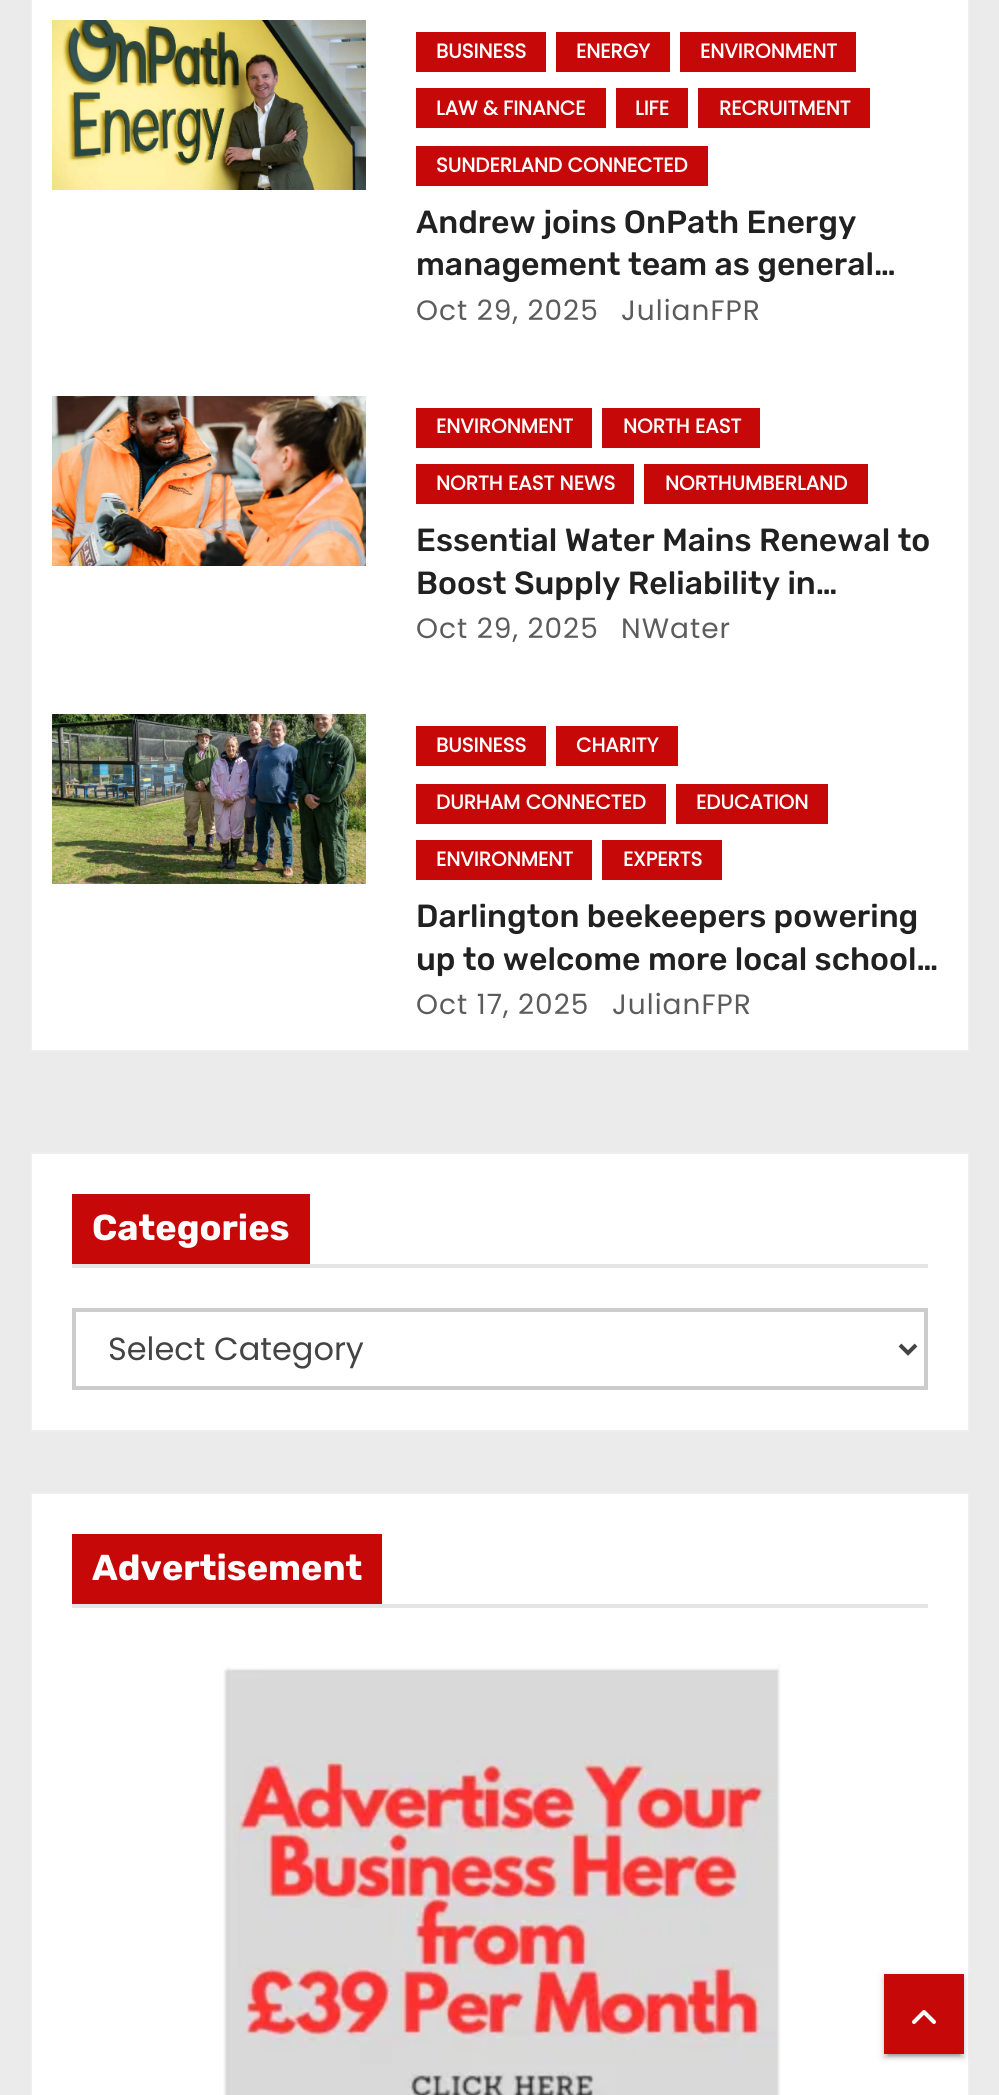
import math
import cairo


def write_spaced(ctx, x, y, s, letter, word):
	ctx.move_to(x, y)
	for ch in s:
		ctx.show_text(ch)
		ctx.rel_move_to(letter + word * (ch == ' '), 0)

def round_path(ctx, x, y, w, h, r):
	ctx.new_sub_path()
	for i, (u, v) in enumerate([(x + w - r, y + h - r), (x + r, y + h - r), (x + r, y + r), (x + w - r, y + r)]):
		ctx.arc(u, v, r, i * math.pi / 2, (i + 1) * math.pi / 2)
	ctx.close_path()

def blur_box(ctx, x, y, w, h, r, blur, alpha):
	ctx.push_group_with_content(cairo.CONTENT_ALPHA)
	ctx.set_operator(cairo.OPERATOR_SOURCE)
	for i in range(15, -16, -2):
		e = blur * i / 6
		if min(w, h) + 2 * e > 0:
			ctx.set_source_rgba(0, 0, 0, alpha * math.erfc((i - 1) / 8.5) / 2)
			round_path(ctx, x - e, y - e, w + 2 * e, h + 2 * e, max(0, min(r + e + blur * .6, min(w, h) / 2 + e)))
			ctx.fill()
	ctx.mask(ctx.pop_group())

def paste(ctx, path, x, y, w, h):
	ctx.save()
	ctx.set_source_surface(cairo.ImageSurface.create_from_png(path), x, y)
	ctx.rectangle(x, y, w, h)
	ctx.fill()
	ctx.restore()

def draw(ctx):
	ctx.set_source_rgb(0.918, 0.918, 0.918)
	ctx.paint()
	ctx.set_source_rgb(1, 1, 1)
	ctx.rectangle(31, -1, 938, 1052)
	ctx.fill_preserve()
	ctx.set_source_rgb(0.933, 0.933, 0.933)
	ctx.stroke()
	paste(ctx, 'media/1.png', 52, 20, 314, 170)
	ctx.set_source_rgb(0.78, 0.035, 0.035)
	ctx.rectangle(416, 32, 130, 40)
	ctx.fill()
	ctx.select_font_face('Poppins', cairo.FONT_SLANT_NORMAL, cairo.FONT_WEIGHT_BOLD)
	ctx.set_font_size(20)
	ctx.set_source_rgb(1, 1, 1)
	ctx.move_to(436, 58)
	ctx.show_text('BUSINESS')
	ctx.set_source_rgb(0.78, 0.035, 0.035)
	ctx.rectangle(556, 32, 114, 40)
	ctx.fill()
	ctx.set_source_rgb(1, 1, 1)
	ctx.move_to(576, 58)
	ctx.show_text('ENERGY')
	ctx.set_source_rgb(0.78, 0.035, 0.035)
	ctx.rectangle(680, 32, 176, 40)
	ctx.fill()
	ctx.set_source_rgb(1, 1, 1)
	ctx.move_to(700, 58)
	ctx.show_text('ENVIRONMENT')
	ctx.set_source_rgb(0.78, 0.035, 0.035)
	ctx.rectangle(416, 88, 190, 40)
	ctx.fill()
	ctx.set_source_rgb(1, 1, 1)
	ctx.move_to(436, 115)
	ctx.show_text('LAW & FINANCE')
	ctx.set_source_rgb(0.78, 0.035, 0.035)
	ctx.rectangle(616, 88, 72, 40)
	ctx.fill()
	ctx.set_source_rgb(1, 1, 1)
	ctx.move_to(635, 115)
	ctx.show_text('LIFE')
	ctx.set_source_rgb(0.78, 0.035, 0.035)
	ctx.rectangle(698, 88, 172, 40)
	ctx.fill()
	ctx.set_source_rgb(1, 1, 1)
	ctx.move_to(719, 115)
	ctx.show_text('RECRUITMENT')
	ctx.set_source_rgb(0.78, 0.035, 0.035)
	ctx.rectangle(416, 146, 292, 40)
	ctx.fill()
	ctx.set_source_rgb(1, 1, 1)
	ctx.move_to(436, 172)
	ctx.show_text('SUNDERLAND CONNECTED')
	ctx.select_font_face('Rubik Medium')
	ctx.set_font_size(32)
	ctx.set_source_rgb(0.129, 0.129, 0.129)
	ctx.move_to(416, 233)
	ctx.show_text('Andrew joins OnPath Energy')
	ctx.move_to(416, 275)
	ctx.show_text('management team as general…')
	ctx.select_font_face('Poppins')
	ctx.set_font_size(28)
	ctx.set_source_rgb(0.361, 0.361, 0.361)
	write_spaced(ctx, 416, 320, 'Oct 29, 2025', 1, 0)
	write_spaced(ctx, 621, 320, 'JulianFPR', 1, 0)
	paste(ctx, 'media/2.png', 52, 396, 314, 170)
	ctx.set_source_rgb(0.78, 0.035, 0.035)
	ctx.rectangle(416, 408, 176, 40)
	ctx.fill()
	ctx.select_font_face('Poppins', cairo.FONT_SLANT_NORMAL, cairo.FONT_WEIGHT_BOLD)
	ctx.set_font_size(20)
	ctx.set_source_rgb(1, 1, 1)
	ctx.move_to(436, 433)
	ctx.show_text('ENVIRONMENT')
	ctx.set_source_rgb(0.78, 0.035, 0.035)
	ctx.rectangle(602, 408, 158, 40)
	ctx.fill()
	ctx.set_source_rgb(1, 1, 1)
	ctx.move_to(623, 433)
	ctx.show_text('NORTH EAST')
	ctx.set_source_rgb(0.78, 0.035, 0.035)
	ctx.rectangle(416, 464, 218, 40)
	ctx.fill()
	ctx.set_source_rgb(1, 1, 1)
	ctx.move_to(436, 490)
	ctx.show_text('NORTH EAST NEWS')
	ctx.set_source_rgb(0.78, 0.035, 0.035)
	ctx.rectangle(644, 464, 224, 40)
	ctx.fill()
	ctx.set_source_rgb(1, 1, 1)
	ctx.move_to(665, 490)
	ctx.show_text('NORTHUMBERLAND')
	ctx.select_font_face('Rubik Medium')
	ctx.set_font_size(32)
	ctx.set_source_rgb(0.129, 0.129, 0.129)
	ctx.move_to(416, 551)
	ctx.show_text('Essential Water Mains Renewal to')
	ctx.move_to(416, 594)
	ctx.show_text('Boost Supply Reliability in…')
	ctx.select_font_face('Poppins')
	ctx.set_font_size(28)
	ctx.set_source_rgb(0.361, 0.361, 0.361)
	write_spaced(ctx, 416, 638, 'Oct 29, 2025', 1, 0)
	write_spaced(ctx, 621, 638, 'NWater', 1, 0)
	paste(ctx, 'media/3.png', 52, 714, 314, 170)
	ctx.set_source_rgb(0.78, 0.035, 0.035)
	ctx.rectangle(416, 726, 130, 40)
	ctx.fill()
	ctx.select_font_face('Poppins', cairo.FONT_SLANT_NORMAL, cairo.FONT_WEIGHT_BOLD)
	ctx.set_font_size(20)
	ctx.set_source_rgb(1, 1, 1)
	ctx.move_to(436, 752)
	ctx.show_text('BUSINESS')
	ctx.set_source_rgb(0.78, 0.035, 0.035)
	ctx.rectangle(556, 726, 122, 40)
	ctx.fill()
	ctx.set_source_rgb(1, 1, 1)
	ctx.move_to(576, 752)
	ctx.show_text('CHARITY')
	ctx.set_source_rgb(0.78, 0.035, 0.035)
	ctx.rectangle(416, 784, 250, 40)
	ctx.fill()
	ctx.set_source_rgb(1, 1, 1)
	ctx.move_to(436, 809)
	ctx.show_text('DURHAM CONNECTED')
	ctx.set_source_rgb(0.78, 0.035, 0.035)
	ctx.rectangle(676, 784, 152, 40)
	ctx.fill()
	ctx.set_source_rgb(1, 1, 1)
	ctx.move_to(696, 809)
	ctx.show_text('EDUCATION')
	ctx.set_source_rgb(0.78, 0.035, 0.035)
	ctx.rectangle(416, 840, 176, 40)
	ctx.fill()
	ctx.set_source_rgb(1, 1, 1)
	ctx.move_to(436, 866)
	ctx.show_text('ENVIRONMENT')
	ctx.set_source_rgb(0.78, 0.035, 0.035)
	ctx.rectangle(602, 840, 120, 40)
	ctx.fill()
	ctx.set_source_rgb(1, 1, 1)
	ctx.move_to(623, 866)
	ctx.show_text('EXPERTS')
	ctx.select_font_face('Rubik Medium')
	ctx.set_font_size(32)
	ctx.set_source_rgb(0.129, 0.129, 0.129)
	ctx.move_to(416, 927)
	ctx.show_text('Darlington beekeepers powering')
	ctx.move_to(416, 970)
	ctx.show_text('up to welcome more local school…')
	ctx.select_font_face('Poppins')
	ctx.set_font_size(28)
	ctx.set_source_rgb(0.361, 0.361, 0.361)
	write_spaced(ctx, 416, 1014, 'Oct 17, 2025', 1, 0)
	write_spaced(ctx, 612, 1014, 'JulianFPR', 1, 0)
	ctx.set_source_rgb(1, 1, 1)
	ctx.rectangle(31, 1153, 938, 278)
	ctx.fill_preserve()
	ctx.set_source_rgb(0.933, 0.933, 0.933)
	ctx.stroke()
	ctx.set_source_rgb(0.894, 0.894, 0.894)
	ctx.rectangle(72, 1264, 856, 4)
	ctx.fill()
	ctx.set_source_rgb(0.78, 0.035, 0.035)
	ctx.rectangle(72, 1194, 238, 70)
	ctx.fill()
	ctx.select_font_face('Rubik', cairo.FONT_SLANT_NORMAL, cairo.FONT_WEIGHT_BOLD)
	ctx.set_font_size(36)
	ctx.set_source_rgb(1, 1, 1)
	ctx.move_to(92, 1240)
	ctx.show_text('Categories')
	ctx.rectangle(74, 1310, 852, 78)
	ctx.set_source_rgb(0.8, 0.8, 0.8)
	ctx.set_line_width(4)
	ctx.stroke()
	ctx.new_path()
	ctx.move_to(900, 1345)
	ctx.line_to(908, 1353)
	ctx.line_to(916, 1345)
	ctx.set_source_rgb(0.267, 0.267, 0.267)
	ctx.stroke()
	ctx.select_font_face('Poppins')
	ctx.set_font_size(32)
	ctx.move_to(108, 1360)
	ctx.show_text('Select Category')
	ctx.set_source_rgb(1, 1, 1)
	ctx.rectangle(31, 1493, 938, 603)
	ctx.fill_preserve()
	ctx.set_source_rgb(0.933, 0.933, 0.933)
	ctx.set_line_width(2)
	ctx.stroke()
	ctx.set_source_rgb(0.894, 0.894, 0.894)
	ctx.rectangle(72, 1604, 856, 4)
	ctx.fill()
	ctx.set_source_rgb(0.78, 0.035, 0.035)
	ctx.rectangle(72, 1534, 310, 70)
	ctx.fill()
	ctx.select_font_face('Rubik', cairo.FONT_SLANT_NORMAL, cairo.FONT_WEIGHT_BOLD)
	ctx.set_font_size(36)
	ctx.set_source_rgb(1, 1, 1)
	ctx.move_to(92, 1580)
	ctx.show_text('Advertisement')
	paste(ctx, 'media/4.png', 223, 1664, 558, 431)
	ctx.set_source_rgb(0, 0, 0)
	blur_box(ctx, 884, 1976, 80, 80, 0, 5, 0.12)
	blur_box(ctx, 888, 1984, 72, 72, 0, 1, 0.2)
	blur_box(ctx, 884, 1978, 80, 80, 0, 2, 0.14)
	ctx.set_source_rgb(0.78, 0.035, 0.035)
	ctx.rectangle(884, 1974, 80, 80)
	ctx.fill()
	paste(ctx, 'media/5.png', 912, 2010, 24, 14)


surface = cairo.ImageSurface(cairo.FORMAT_RGB24, 999, 2095)
ctx = cairo.Context(surface)
options = cairo.FontOptions()
options.set_hint_metrics(cairo.HINT_METRICS_OFF)
options.set_hint_style(cairo.HINT_STYLE_NONE)
ctx.set_font_options(options)
ctx.set_miter_limit(4)
draw(ctx)
surface.write_to_png('image.png')
